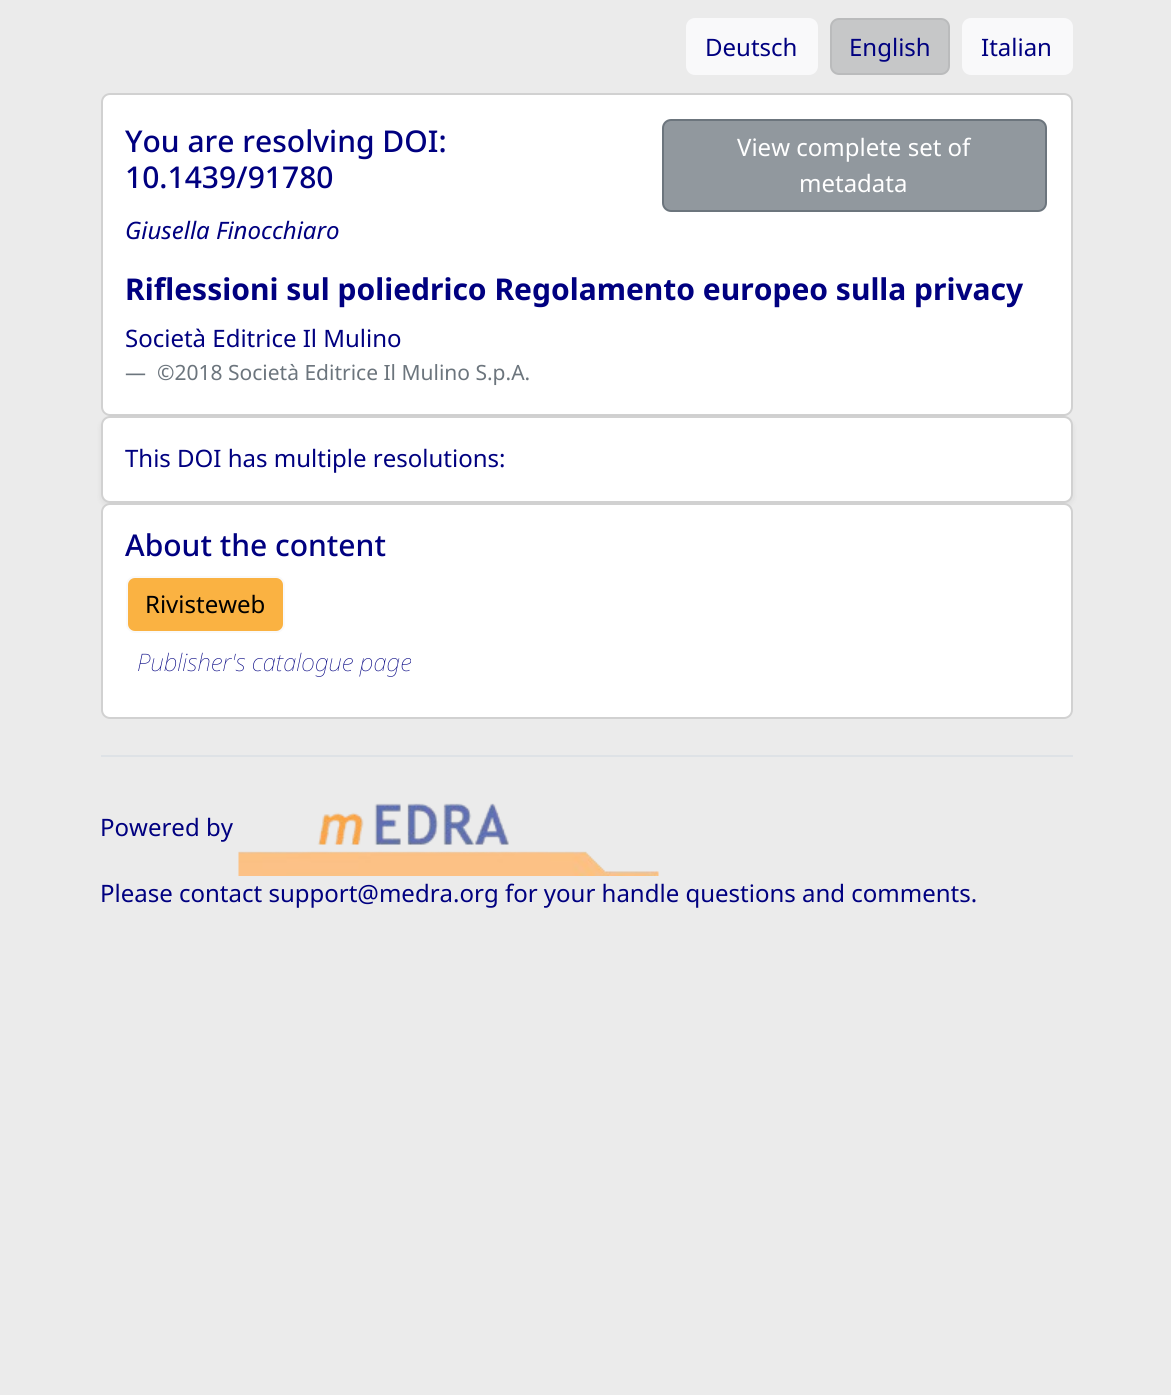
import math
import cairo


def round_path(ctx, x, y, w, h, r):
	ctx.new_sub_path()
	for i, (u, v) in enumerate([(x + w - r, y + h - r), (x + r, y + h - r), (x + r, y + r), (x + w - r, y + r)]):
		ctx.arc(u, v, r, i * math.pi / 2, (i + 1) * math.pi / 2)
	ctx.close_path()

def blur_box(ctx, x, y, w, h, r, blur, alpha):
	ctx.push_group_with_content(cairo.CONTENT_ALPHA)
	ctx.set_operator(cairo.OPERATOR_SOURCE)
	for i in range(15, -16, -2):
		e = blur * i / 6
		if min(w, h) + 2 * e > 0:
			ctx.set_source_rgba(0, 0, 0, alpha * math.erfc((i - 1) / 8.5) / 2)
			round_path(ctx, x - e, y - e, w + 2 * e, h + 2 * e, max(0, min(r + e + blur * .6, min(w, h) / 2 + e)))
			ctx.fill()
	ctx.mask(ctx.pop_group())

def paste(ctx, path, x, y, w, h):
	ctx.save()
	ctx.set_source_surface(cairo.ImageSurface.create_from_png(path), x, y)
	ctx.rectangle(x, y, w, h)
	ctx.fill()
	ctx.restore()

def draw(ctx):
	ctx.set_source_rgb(0.918, 0.918, 0.918)
	ctx.paint()
	ctx.set_source_rgb(0.973, 0.976, 0.98)
	round_path(ctx, 687, 19, 130, 55, 8)
	ctx.fill_preserve()
	ctx.stroke()
	ctx.select_font_face('Noto Sans')
	ctx.set_font_size(24)
	ctx.set_source_rgb(0, 0, 0.502)
	ctx.move_to(705, 56)
	ctx.show_text('Deutsch')
	ctx.set_source_rgb(0.776, 0.78, 0.784)
	round_path(ctx, 831, 19, 118, 55, 8)
	ctx.fill_preserve()
	ctx.set_source_rgb(0.729, 0.733, 0.737)
	ctx.stroke()
	ctx.set_source_rgb(0, 0, 0.502)
	ctx.move_to(849, 56)
	ctx.show_text('English')
	ctx.set_source_rgb(0.973, 0.976, 0.98)
	round_path(ctx, 963, 19, 109, 55, 8)
	ctx.fill_preserve()
	ctx.stroke()
	ctx.set_source_rgb(0, 0, 0.502)
	ctx.move_to(981, 56)
	ctx.show_text('Italian')
	ctx.set_source_rgb(1, 1, 1)
	round_path(ctx, 101, 93, 972, 323, 9)
	ctx.fill()
	round_path(ctx, 102, 94, 970, 321, 8)
	ctx.set_source_rgba(0, 0, 0, 0.18)
	ctx.stroke()
	ctx.select_font_face('Noto Sans Medium')
	ctx.set_font_size(30)
	ctx.set_source_rgb(0, 0, 0.502)
	ctx.move_to(125, 152)
	ctx.show_text('You are resolving DOI:')
	ctx.move_to(125, 188)
	ctx.show_text('10.1439/91780')
	ctx.set_source_rgb(0.569, 0.596, 0.62)
	round_path(ctx, 663, 120, 383, 91, 8)
	ctx.fill_preserve()
	ctx.set_source_rgb(0.424, 0.459, 0.49)
	ctx.stroke()
	ctx.select_font_face('Noto Sans')
	ctx.set_font_size(24)
	ctx.set_source_rgb(1, 1, 1)
	ctx.move_to(737, 156)
	ctx.show_text('View complete set of')
	ctx.move_to(799, 192)
	ctx.show_text('metadata')
	ctx.select_font_face('Noto Sans', cairo.FONT_SLANT_ITALIC)
	ctx.set_source_rgb(0, 0, 0.502)
	ctx.move_to(125, 239)
	ctx.show_text('Giusella Finocchiaro')
	ctx.select_font_face('Noto Sans', cairo.FONT_SLANT_NORMAL, cairo.FONT_WEIGHT_BOLD)
	ctx.set_font_size(30)
	ctx.move_to(125, 300)
	ctx.show_text('Riflessioni sul poliedrico Regolamento europeo sulla privacy')
	ctx.select_font_face('Noto Sans')
	ctx.set_font_size(24)
	ctx.move_to(125, 347)
	ctx.show_text('Società Editrice Il Mulino')
	ctx.set_font_size(21)
	ctx.set_source_rgb(0.424, 0.459, 0.49)
	ctx.move_to(125, 380)
	ctx.show_text('—')
	ctx.move_to(157, 380)
	ctx.show_text('©2018 Società Editrice Il Mulino S.p.A.')
	ctx.set_source_rgb(0, 0, 0)
	blur_box(ctx, 101, 419, 972, 87, 9, 3, 0.07)
	ctx.set_source_rgb(1, 1, 1)
	round_path(ctx, 101, 416, 972, 87, 9)
	ctx.fill()
	round_path(ctx, 102, 417, 970, 85, 8)
	ctx.set_source_rgba(0, 0, 0, 0.18)
	ctx.stroke()
	ctx.set_font_size(24)
	ctx.set_source_rgb(0, 0, 0.502)
	ctx.move_to(125, 467)
	ctx.show_text('This DOI has multiple resolutions:')
	ctx.set_source_rgb(1, 1, 1)
	round_path(ctx, 101, 503, 972, 216, 9)
	ctx.fill()
	round_path(ctx, 102, 504, 970, 214, 8)
	ctx.set_source_rgba(0, 0, 0, 0.18)
	ctx.stroke()
	ctx.select_font_face('Noto Sans Medium')
	ctx.set_font_size(30)
	ctx.set_source_rgb(0, 0, 0.502)
	ctx.move_to(125, 556)
	ctx.show_text('About the content')
	ctx.set_source_rgb(0.98, 0.698, 0.259)
	round_path(ctx, 127, 577, 157, 55, 8)
	ctx.fill_preserve()
	ctx.set_source_rgb(0.973, 0.976, 0.98)
	ctx.stroke()
	ctx.select_font_face('Noto Sans')
	ctx.set_font_size(24)
	ctx.set_source_rgb(0, 0, 0)
	ctx.move_to(145, 613)
	ctx.show_text('Rivisteweb')
	ctx.select_font_face('Noto Sans Thin', cairo.FONT_SLANT_ITALIC)
	ctx.set_source_rgb(0, 0, 0.502)
	ctx.move_to(137, 671)
	ctx.show_text('Publisher\'s catalogue page')
	ctx.set_source_rgb(0.871, 0.886, 0.902)
	ctx.rectangle(101, 755, 972, 2)
	ctx.fill()
	ctx.select_font_face('Noto Sans')
	ctx.set_source_rgb(0, 0, 0.502)
	ctx.move_to(100, 836)
	ctx.show_text('Powered by')
	paste(ctx, 'media/1.png', 238, 803, 421, 73)
	ctx.move_to(100, 902)
	ctx.show_text('Please contact support@medra.org for your handle questions and comments.')


surface = cairo.ImageSurface(cairo.FORMAT_RGB24, 1171, 1395)
ctx = cairo.Context(surface)
options = cairo.FontOptions()
options.set_hint_metrics(cairo.HINT_METRICS_OFF)
options.set_hint_style(cairo.HINT_STYLE_NONE)
ctx.set_font_options(options)
ctx.set_miter_limit(4)
draw(ctx)
surface.write_to_png('image.png')
